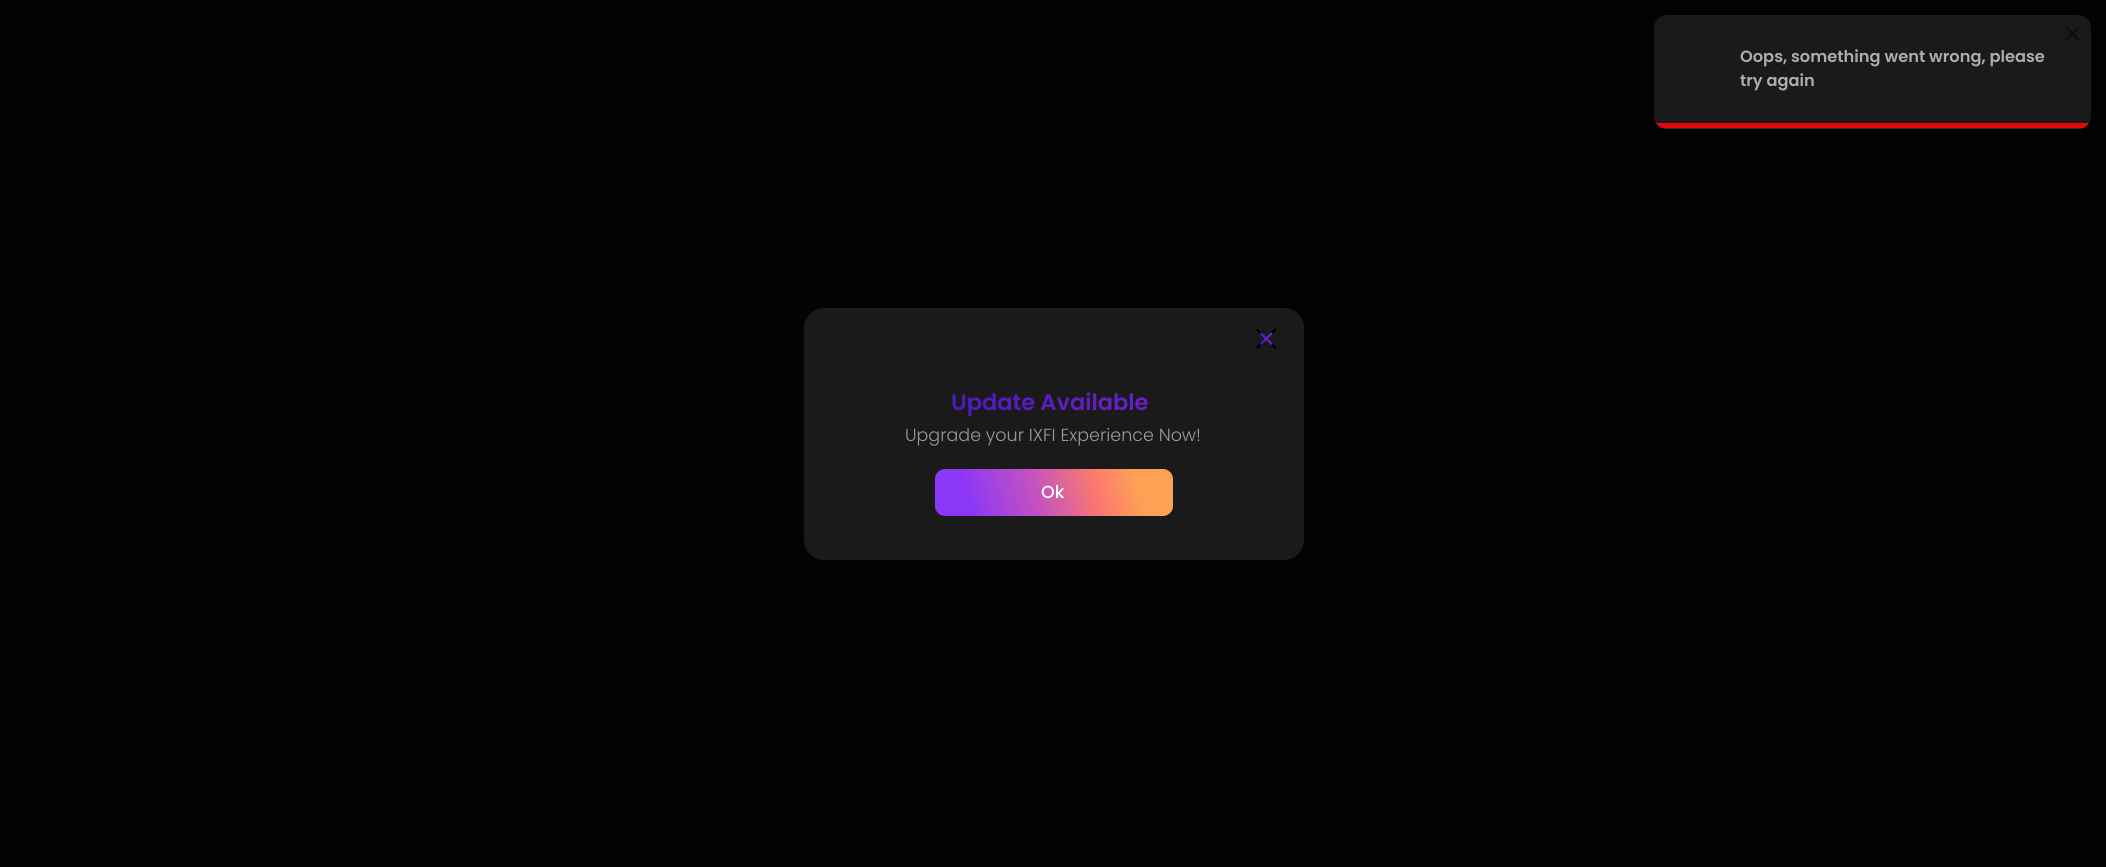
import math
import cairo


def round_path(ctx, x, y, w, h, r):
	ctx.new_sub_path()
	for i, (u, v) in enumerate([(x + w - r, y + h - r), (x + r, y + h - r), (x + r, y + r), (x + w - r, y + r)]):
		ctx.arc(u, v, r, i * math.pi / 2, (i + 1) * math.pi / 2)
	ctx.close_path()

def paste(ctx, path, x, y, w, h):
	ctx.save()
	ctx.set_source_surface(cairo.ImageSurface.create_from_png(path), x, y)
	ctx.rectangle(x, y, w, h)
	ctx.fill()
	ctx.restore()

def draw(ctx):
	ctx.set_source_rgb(0.012, 0.012, 0.012)
	ctx.paint()
	ctx.set_source_rgb(0.102, 0.102, 0.102)
	round_path(ctx, 1654, 15, 437, 114, 13)
	ctx.fill()
	paste(ctx, 'media/1.png', 2065, 27, 15, 14)
	ctx.save()
	round_path(ctx, 1654, 15, 437, 114, 13)
	ctx.clip()
	ctx.set_source_rgba(0.498, 0.498, 0.498, 0.25)
	ctx.rectangle(1654, 123, 437, 6)
	ctx.fill()
	ctx.restore()
	ctx.select_font_face('Poppins SemiBold')
	ctx.set_font_size(16.25)
	ctx.set_source_rgb(0.678, 0.678, 0.678)
	ctx.move_to(1740, 62)
	ctx.show_text('Oops, something went wrong, please')
	ctx.move_to(1740, 86)
	ctx.show_text('try again')
	ctx.save()
	round_path(ctx, 1654, 15, 437, 114, 13)
	ctx.clip()
	ctx.set_source_rgb(0.894, 0.031, 0.043)
	ctx.rectangle(1654, 123, 437, 5)
	ctx.fill()
	ctx.restore()
	ctx.set_source_rgb(0.102, 0.102, 0.102)
	round_path(ctx, 804, 308, 500, 252, 20)
	ctx.fill()
	paste(ctx, 'media/2.png', 1256, 329, 20, 20)
	paste(ctx, 'media/3.png', 1260, 332, 13, 13)
	ctx.set_font_size(22.5)
	gradient = cairo.LinearGradient(854, 472, 1246, 333)
	gradient.add_color_stop_rgba(0.13, 0.263, 0.094, 0.737, 1)
	gradient.add_color_stop_rgba(0.86, 0.447, 0.133, 0.788, 1)
	ctx.set_source(gradient)
	ctx.move_to(951, 410)
	ctx.show_text('Update Available')
	ctx.select_font_face('Poppins Light')
	ctx.set_font_size(17.5)
	ctx.set_source_rgb(0.6, 0.6, 0.6)
	ctx.move_to(905, 441)
	ctx.show_text('Upgrade your IXFI Experience Now!')
	gradient = cairo.LinearGradient(937, 525, 1170, 460)
	gradient.add_color_stop_rgba(0.15, 0.545, 0.216, 0.969, 1)
	gradient.add_color_stop_rgba(0.44, 0.78, 0.329, 0.737, 1)
	gradient.add_color_stop_rgba(0.67, 0.984, 0.471, 0.439, 1)
	gradient.add_color_stop_rgba(0.84, 0.992, 0.631, 0.329, 1)
	ctx.set_source(gradient)
	round_path(ctx, 935, 469, 238, 47, 10)
	ctx.fill()
	ctx.select_font_face('Poppins Medium')
	ctx.set_source_rgb(1, 1, 1)
	ctx.move_to(1041, 498)
	ctx.show_text('Ok')


surface = cairo.ImageSurface(cairo.FORMAT_RGB24, 2106, 867)
ctx = cairo.Context(surface)
options = cairo.FontOptions()
options.set_hint_metrics(cairo.HINT_METRICS_OFF)
options.set_hint_style(cairo.HINT_STYLE_NONE)
ctx.set_font_options(options)
ctx.set_miter_limit(4)
draw(ctx)
surface.write_to_png('image.png')
